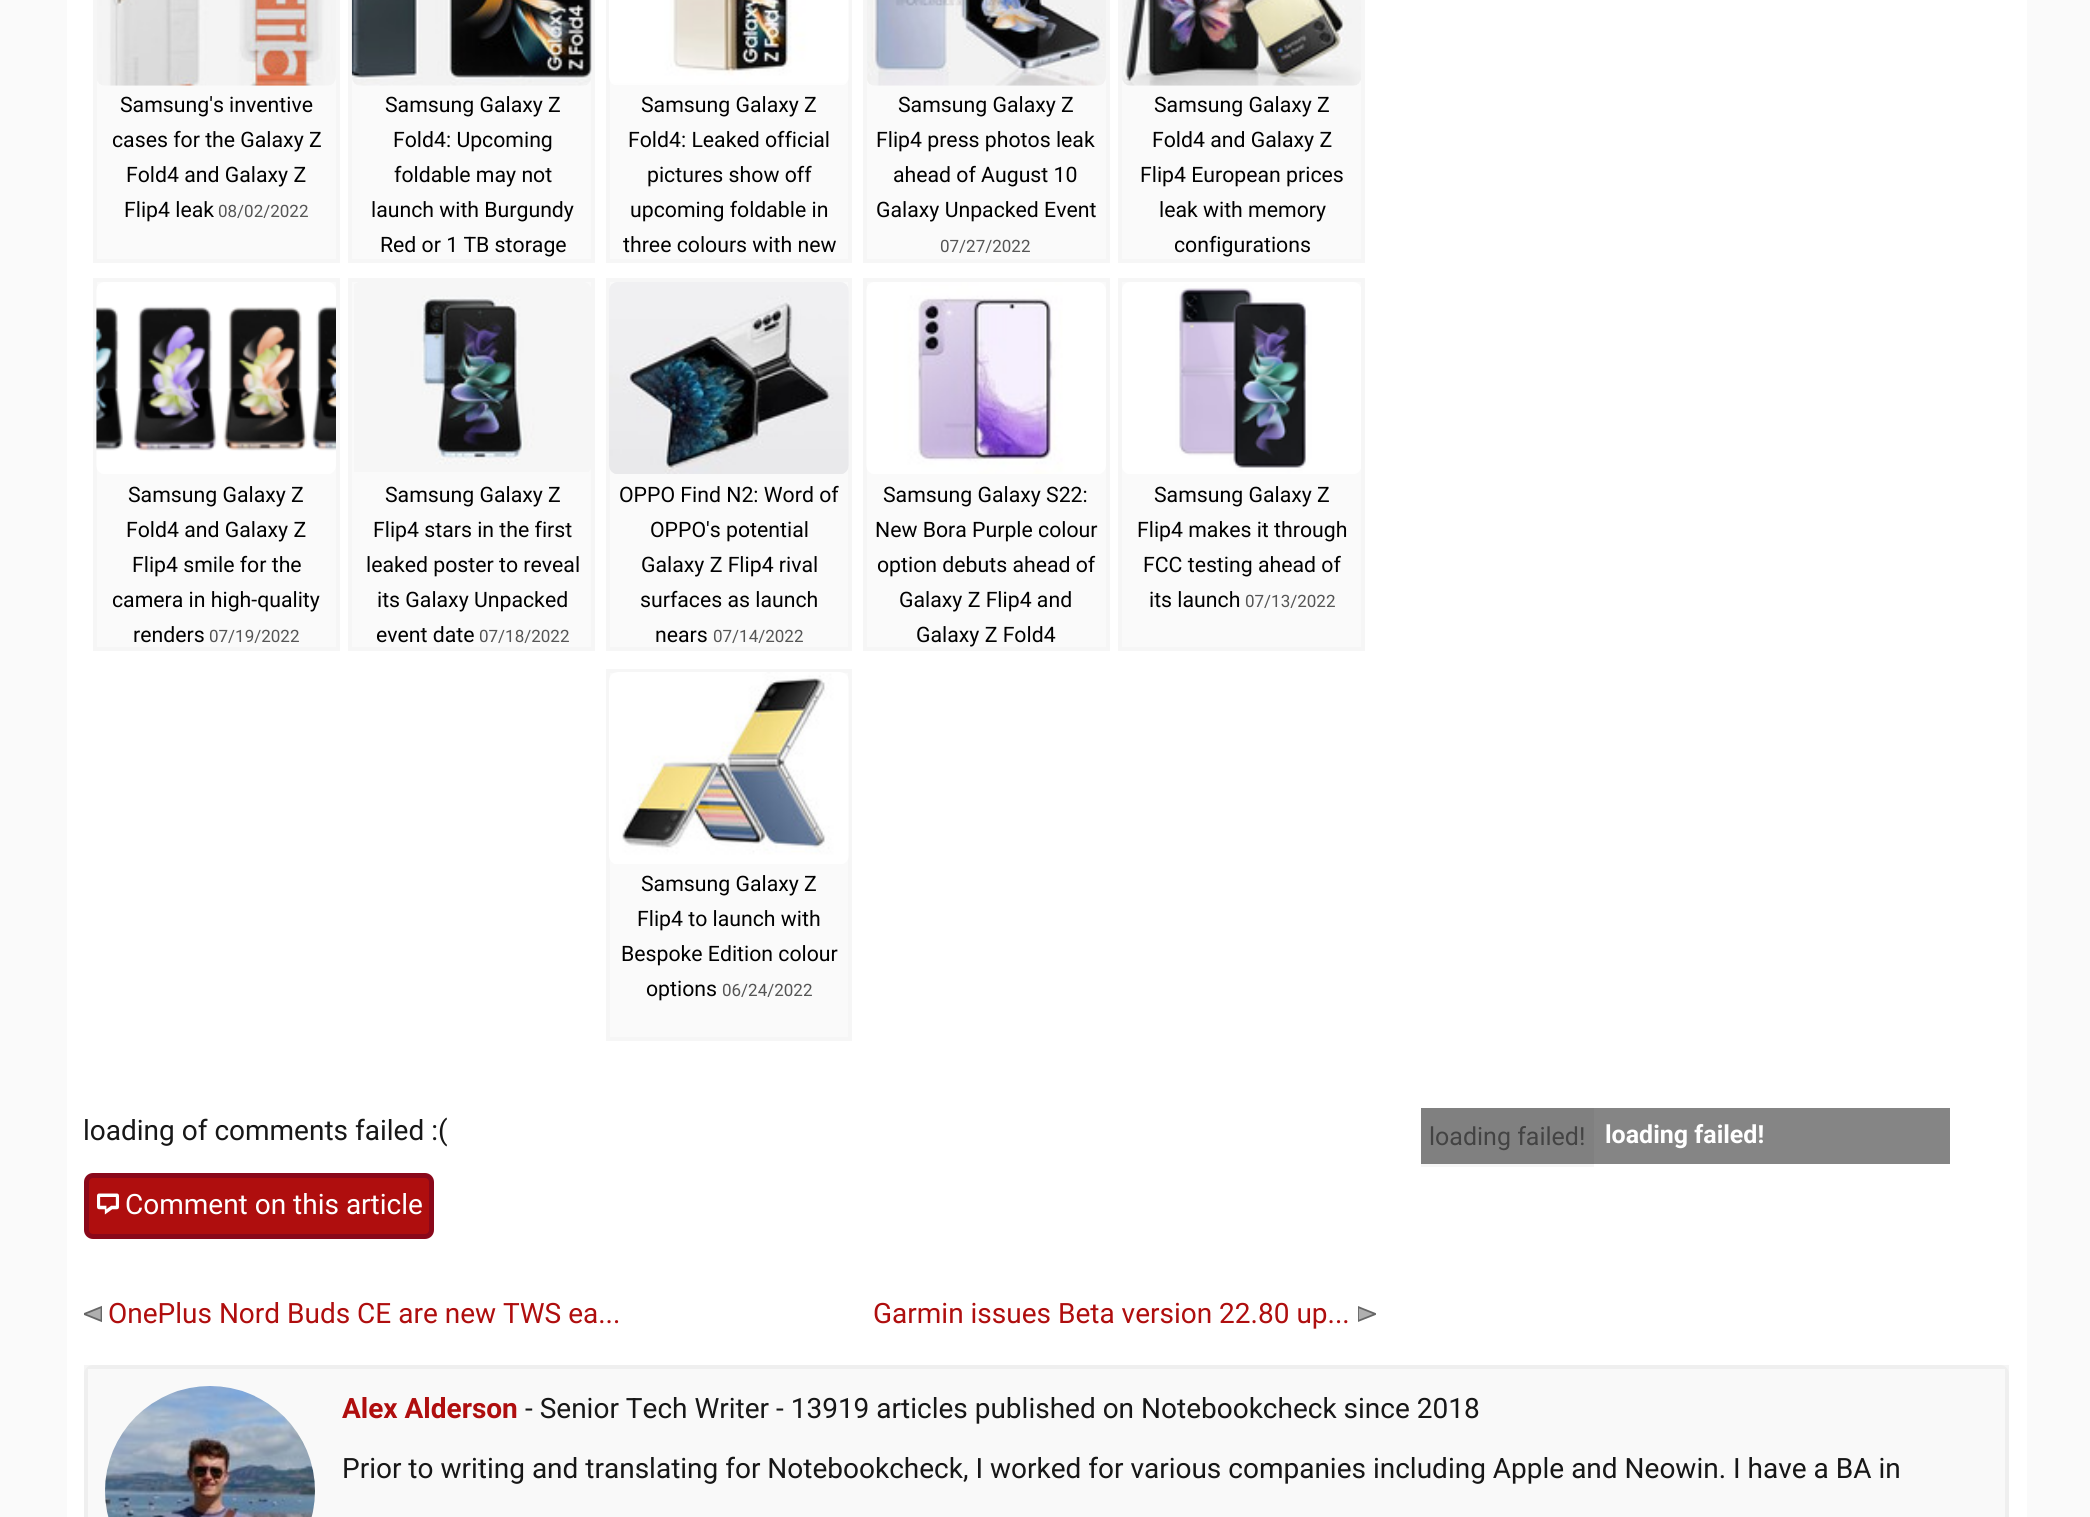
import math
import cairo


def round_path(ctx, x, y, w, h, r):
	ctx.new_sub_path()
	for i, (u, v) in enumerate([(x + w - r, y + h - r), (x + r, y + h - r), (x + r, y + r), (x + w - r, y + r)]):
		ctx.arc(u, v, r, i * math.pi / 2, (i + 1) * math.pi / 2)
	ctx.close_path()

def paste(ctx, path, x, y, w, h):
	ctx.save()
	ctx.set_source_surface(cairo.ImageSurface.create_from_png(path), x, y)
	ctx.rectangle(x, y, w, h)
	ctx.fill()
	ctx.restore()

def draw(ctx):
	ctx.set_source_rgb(0.98, 0.98, 0.98)
	ctx.paint()
	ctx.set_source_rgb(1, 1, 1)
	ctx.rectangle(67, 0, 1960, 1517)
	ctx.fill()
	ctx.set_source_rgb(0.961, 0.961, 0.961)
	ctx.rectangle(1421, 1164, 173, 3)
	ctx.fill()
	ctx.set_source_rgb(0.98, 0.98, 0.98)
	ctx.rectangle(97, 77, 239, 182)
	ctx.fill()
	ctx.rectangle(95, -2, 243, 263)
	ctx.set_source_rgb(0.961, 0.961, 0.961)
	ctx.set_line_width(4)
	ctx.stroke()
	paste(ctx, 'media/1.png', 97, 0, 239, 86)
	ctx.select_font_face('Roboto')
	ctx.set_font_size(21.25)
	ctx.set_source_rgb(0, 0, 0)
	for x, y, s in [
		(120, 112, 'Samsung\'s inventive'),
		(112, 147, 'cases for the Galaxy Z'),
		(126, 182, 'Fold4 and Galaxy Z'),
		(124, 217, 'Flip4 leak'),
	]:
		ctx.move_to(x, y)
		ctx.show_text(s)
	ctx.set_font_size(17)
	ctx.set_source_rgb(0.333, 0.333, 0.333)
	ctx.move_to(218, 217)
	ctx.show_text('08/02/2022')
	ctx.set_source_rgb(0.98, 0.98, 0.98)
	ctx.rectangle(352, 78, 239, 181)
	ctx.fill()
	ctx.rectangle(350, -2, 243, 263)
	ctx.set_source_rgb(0.961, 0.961, 0.961)
	ctx.stroke()
	paste(ctx, 'media/2.png', 351, 0, 241, 86)
	ctx.set_font_size(21.25)
	ctx.set_source_rgb(0, 0, 0)
	for x, y, s in [
		(385, 112, 'Samsung Galaxy Z'),
		(393, 147, 'Fold4: Upcoming'),
		(394, 182, 'foldable may not'),
		(371, 217, 'launch with Burgundy'),
		(380, 252, 'Red or 1 TB storage'),
	]:
		ctx.move_to(x, y)
		ctx.show_text(s)
	ctx.set_source_rgb(0.98, 0.98, 0.98)
	ctx.rectangle(610, 80, 238, 179)
	ctx.fill()
	ctx.rectangle(608, -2, 242, 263)
	ctx.set_source_rgb(0.961, 0.961, 0.961)
	ctx.stroke()
	paste(ctx, 'media/3.png', 609, 0, 240, 85)
	ctx.set_source_rgb(0, 0, 0)
	for x, y, s in [
		(641, 112, 'Samsung Galaxy Z'),
		(628, 147, 'Fold4: Leaked official'),
		(647, 182, 'pictures show off'),
		(630, 217, 'upcoming foldable in'),
		(623, 252, 'three colours with new'),
	]:
		ctx.move_to(x, y)
		ctx.show_text(s)
	ctx.set_source_rgb(0.98, 0.98, 0.98)
	ctx.rectangle(867, 77, 239, 182)
	ctx.fill()
	ctx.rectangle(865, -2, 243, 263)
	ctx.set_source_rgb(0.961, 0.961, 0.961)
	ctx.stroke()
	paste(ctx, 'media/4.png', 867, 0, 239, 86)
	ctx.set_source_rgb(0, 0, 0)
	for x, y, s in [
		(898, 112, 'Samsung Galaxy Z'),
		(876, 147, 'Flip4 press photos leak'),
		(893, 182, 'ahead of August 10'),
		(876, 217, 'Galaxy Unpacked Event'),
	]:
		ctx.move_to(x, y)
		ctx.show_text(s)
	ctx.set_font_size(17)
	ctx.set_source_rgb(0.333, 0.333, 0.333)
	ctx.move_to(940, 252)
	ctx.show_text('07/27/2022')
	ctx.set_source_rgb(0.98, 0.98, 0.98)
	ctx.rectangle(1122, 78, 239, 181)
	ctx.fill()
	ctx.rectangle(1120, -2, 243, 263)
	ctx.set_source_rgb(0.961, 0.961, 0.961)
	ctx.stroke()
	paste(ctx, 'media/5.png', 1122, 0, 239, 86)
	ctx.set_font_size(21.25)
	ctx.set_source_rgb(0, 0, 0)
	for x, y, s in [
		(1154, 112, 'Samsung Galaxy Z'),
		(1152, 147, 'Fold4 and Galaxy Z'),
		(1140, 182, 'Flip4 European prices'),
		(1159, 217, 'leak with memory'),
		(1174, 252, 'configurations'),
	]:
		ctx.move_to(x, y)
		ctx.show_text(s)
	ctx.set_source_rgb(0.98, 0.98, 0.98)
	ctx.rectangle(95, 280, 243, 369)
	ctx.fill_preserve()
	ctx.set_source_rgb(0.961, 0.961, 0.961)
	ctx.stroke()
	paste(ctx, 'media/6.png', 96, 282, 240, 192)
	ctx.set_source_rgb(0, 0, 0)
	for x, y, s in [
		(128, 502, 'Samsung Galaxy Z'),
		(126, 537, 'Fold4 and Galaxy Z'),
		(132, 572, 'Flip4 smile for the'),
		(112, 607, 'camera in high-quality'),
		(133, 642, 'renders'),
	]:
		ctx.move_to(x, y)
		ctx.show_text(s)
	ctx.set_font_size(17)
	ctx.set_source_rgb(0.333, 0.333, 0.333)
	ctx.move_to(209, 642)
	ctx.show_text('07/19/2022')
	ctx.set_source_rgb(0.98, 0.98, 0.98)
	ctx.rectangle(350, 280, 243, 369)
	ctx.fill_preserve()
	ctx.set_source_rgb(0.961, 0.961, 0.961)
	ctx.stroke()
	paste(ctx, 'media/7.png', 354, 282, 237, 190)
	ctx.set_font_size(21.25)
	ctx.set_source_rgb(0, 0, 0)
	for x, y, s in [
		(385, 502, 'Samsung Galaxy Z'),
		(373, 537, 'Flip4 stars in the first'),
		(366, 572, 'leaked poster to reveal'),
		(377, 607, 'its Galaxy Unpacked'),
		(376, 642, 'event date'),
	]:
		ctx.move_to(x, y)
		ctx.show_text(s)
	ctx.set_font_size(17)
	ctx.set_source_rgb(0.333, 0.333, 0.333)
	ctx.move_to(479, 642)
	ctx.show_text('07/18/2022')
	ctx.set_source_rgb(0.98, 0.98, 0.98)
	ctx.rectangle(608, 280, 242, 369)
	ctx.fill_preserve()
	ctx.set_source_rgb(0.961, 0.961, 0.961)
	ctx.stroke()
	paste(ctx, 'media/8.png', 609, 282, 240, 192)
	ctx.set_font_size(21.25)
	ctx.set_source_rgb(0, 0, 0)
	for x, y, s in [
		(619, 502, 'OPPO Find N2: Word of'),
		(650, 537, 'OPPO\'s potential'),
		(641, 572, 'Galaxy Z Flip4 rival'),
		(640, 607, 'surfaces as launch'),
		(655, 642, 'nears'),
	]:
		ctx.move_to(x, y)
		ctx.show_text(s)
	ctx.set_font_size(17)
	ctx.set_source_rgb(0.333, 0.333, 0.333)
	ctx.move_to(713, 642)
	ctx.show_text('07/14/2022')
	ctx.set_source_rgb(0.98, 0.98, 0.98)
	ctx.rectangle(865, 280, 243, 369)
	ctx.fill_preserve()
	ctx.set_source_rgb(0.961, 0.961, 0.961)
	ctx.stroke()
	paste(ctx, 'media/9.png', 866, 282, 240, 192)
	ctx.set_font_size(21.25)
	ctx.set_source_rgb(0, 0, 0)
	for x, y, s in [
		(883, 502, 'Samsung Galaxy S22:'),
		(875, 537, 'New Bora Purple colour'),
		(877, 572, 'option debuts ahead of'),
		(899, 607, 'Galaxy Z Flip4 and'),
		(916, 642, 'Galaxy Z Fold4'),
	]:
		ctx.move_to(x, y)
		ctx.show_text(s)
	ctx.set_source_rgb(0.98, 0.98, 0.98)
	ctx.rectangle(1120, 280, 243, 369)
	ctx.fill_preserve()
	ctx.set_source_rgb(0.961, 0.961, 0.961)
	ctx.stroke()
	paste(ctx, 'media/10.png', 1122, 282, 239, 192)
	ctx.set_source_rgb(0, 0, 0)
	for x, y, s in [
		(1154, 502, 'Samsung Galaxy Z'),
		(1137, 537, 'Flip4 makes it through'),
		(1143, 572, 'FCC testing ahead of'),
		(1149, 607, 'its launch'),
	]:
		ctx.move_to(x, y)
		ctx.show_text(s)
	ctx.set_font_size(17)
	ctx.set_source_rgb(0.333, 0.333, 0.333)
	ctx.move_to(1245, 607)
	ctx.show_text('07/13/2022')
	ctx.set_source_rgb(0.98, 0.98, 0.98)
	ctx.rectangle(608, 671, 242, 368)
	ctx.fill_preserve()
	ctx.set_source_rgb(0.961, 0.961, 0.961)
	ctx.stroke()
	paste(ctx, 'media/11.png', 609, 672, 240, 192)
	ctx.set_font_size(21.25)
	ctx.set_source_rgb(0, 0, 0)
	for x, y, s in [
		(641, 891, 'Samsung Galaxy Z'),
		(637, 926, 'Flip4 to launch with'),
		(621, 961, 'Bespoke Edition colour'),
		(646, 996, 'options'),
	]:
		ctx.move_to(x, y)
		ctx.show_text(s)
	ctx.set_font_size(17)
	ctx.set_source_rgb(0.333, 0.333, 0.333)
	ctx.move_to(722, 996)
	ctx.show_text('06/24/2022')
	ctx.set_font_size(28)
	ctx.set_source_rgb(0.09, 0.09, 0.09)
	ctx.move_to(83, 1140)
	ctx.show_text('loading of comments failed :(')
	ctx.set_source_rgb(0.686, 0.055, 0.055)
	round_path(ctx, 86.5, 1175.5, 345, 61, 6.5)
	ctx.fill_preserve()
	ctx.set_source_rgb(0.541, 0.035, 0.102)
	ctx.set_line_width(5)
	ctx.stroke()
	paste(ctx, 'media/12.png', 97, 1193, 22, 22)
	ctx.set_source_rgb(1, 1, 1)
	ctx.move_to(125, 1214)
	ctx.show_text('Comment on this article')
	ctx.set_source_rgb(0.502, 0.502, 0.502)
	ctx.rectangle(1421, 1108, 173, 56)
	ctx.fill()
	ctx.set_font_size(25)
	ctx.set_source_rgb(0.263, 0.263, 0.263)
	ctx.move_to(1429, 1145)
	ctx.show_text('loading failed!')
	ctx.set_source_rgb(0.522, 0.522, 0.522)
	ctx.rectangle(1594, 1108, 356, 56)
	ctx.fill()
	ctx.select_font_face('Roboto', cairo.FONT_SLANT_NORMAL, cairo.FONT_WEIGHT_BOLD)
	ctx.set_source_rgb(1, 1, 1)
	ctx.move_to(1605, 1143)
	ctx.show_text('loading failed!')
	ctx.select_font_face('Roboto')
	ctx.set_font_size(28)
	ctx.set_source_rgb(0.686, 0.055, 0.055)
	ctx.move_to(108, 1323)
	ctx.show_text('OnePlus Nord Buds CE are new TWS ea...')
	ctx.set_source_rgb(0.686, 0.686, 0.686)
	ctx.new_path()
	ctx.move_to(84, 1314)
	ctx.line_to(101.5, 1321)
	ctx.line_to(101.5, 1307)
	ctx.close_path()
	ctx.fill()
	ctx.save()
	ctx.rectangle(84, 1304, 18, 24)
	ctx.clip()
	ctx.new_path()
	ctx.move_to(84, 1314)
	ctx.line_to(101.5, 1321)
	ctx.line_to(101.5, 1307)
	ctx.close_path()
	ctx.set_source_rgb(0.4, 0.4, 0.4)
	ctx.set_line_width(1.8)
	ctx.stroke()
	ctx.restore()
	ctx.set_source_rgb(0.686, 0.055, 0.055)
	ctx.move_to(873, 1323)
	ctx.show_text('Garmin issues Beta version 22.80 up...')
	ctx.set_source_rgb(0.686, 0.686, 0.686)
	ctx.new_path()
	ctx.move_to(1375.5, 1314)
	ctx.line_to(1358, 1321)
	ctx.line_to(1358, 1307)
	ctx.close_path()
	ctx.fill()
	ctx.save()
	ctx.rectangle(1358, 1304, 18, 24)
	ctx.clip()
	ctx.new_path()
	ctx.move_to(1375.5, 1314)
	ctx.line_to(1358, 1321)
	ctx.line_to(1358, 1307)
	ctx.close_path()
	ctx.set_source_rgb(0.4, 0.4, 0.4)
	ctx.set_line_width(1.8)
	ctx.stroke()
	ctx.restore()
	ctx.set_source_rgb(0.973, 0.973, 0.973)
	round_path(ctx, 84, 1365, 1925, 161, 9)
	ctx.fill()
	ctx.rectangle(86, 1367, 1921, 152)
	ctx.set_source_rgba(0, 0, 0, 0.04)
	ctx.set_line_width(4)
	ctx.stroke()
	paste(ctx, 'media/13.png', 105, 1386, 210, 131)
	ctx.select_font_face('Roboto', cairo.FONT_SLANT_NORMAL, cairo.FONT_WEIGHT_BOLD)
	ctx.set_source_rgb(0.686, 0.055, 0.055)
	ctx.move_to(342, 1418)
	ctx.show_text('Alex Alderson')
	ctx.select_font_face('Roboto')
	ctx.set_source_rgb(0.09, 0.09, 0.09)
	ctx.move_to(525, 1418)
	ctx.show_text('- Senior Tech Writer - 13919 articles published on Notebookcheck since 2018')
	ctx.move_to(342, 1478)
	ctx.show_text('Prior to writing and translating for Notebookcheck, I worked for various companies including Apple and Neowin. I have a BA in')


surface = cairo.ImageSurface(cairo.FORMAT_RGB24, 2090, 1517)
ctx = cairo.Context(surface)
options = cairo.FontOptions()
options.set_hint_metrics(cairo.HINT_METRICS_OFF)
options.set_hint_style(cairo.HINT_STYLE_NONE)
ctx.set_font_options(options)
ctx.set_miter_limit(4)
draw(ctx)
surface.write_to_png('image.png')
